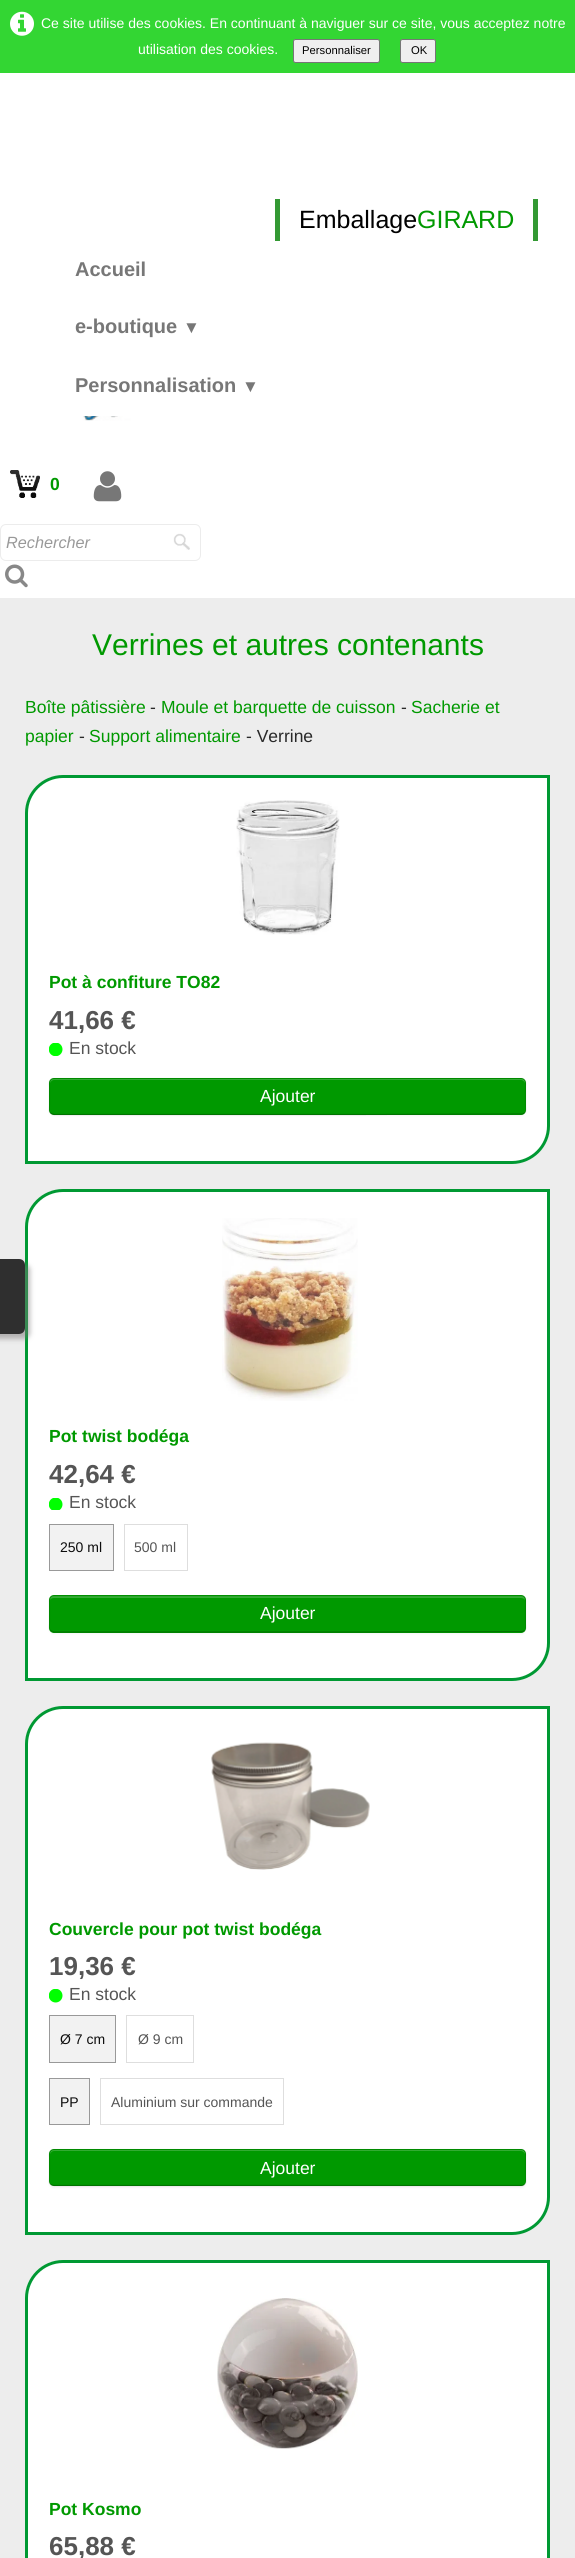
import math
import cairo


def round_path(ctx, x, y, w, h, r):
	ctx.new_sub_path()
	for i, (u, v) in enumerate([(x + w - r, y + h - r), (x + r, y + h - r), (x + r, y + r), (x + w - r, y + r)]):
		ctx.arc(u, v, r, i * math.pi / 2, (i + 1) * math.pi / 2)
	ctx.close_path()

def blur_box(ctx, x, y, w, h, r, blur, alpha):
	ctx.push_group_with_content(cairo.CONTENT_ALPHA)
	ctx.set_operator(cairo.OPERATOR_SOURCE)
	for i in range(15, -16, -2):
		e = blur * i / 6
		if min(w, h) + 2 * e > 0:
			ctx.set_source_rgba(0, 0, 0, alpha * math.erfc((i - 1) / 8.5) / 2)
			round_path(ctx, x - e, y - e, w + 2 * e, h + 2 * e, max(0, min(r + e + blur * .6, min(w, h) / 2 + e)))
			ctx.fill()
	ctx.mask(ctx.pop_group())

def paste(ctx, path, x, y, w, h):
	ctx.save()
	ctx.set_source_surface(cairo.ImageSurface.create_from_png(path), x, y)
	ctx.rectangle(x, y, w, h)
	ctx.fill()
	ctx.restore()

def draw(ctx):
	ctx.set_source_rgb(1, 1, 1)
	ctx.paint()
	ctx.set_source_rgb(0.2, 0.839, 0.2)
	ctx.rectangle(0, 0, 575, 73)
	ctx.fill()
	paste(ctx, 'media/1.png', 10, 11, 24, 25)
	ctx.select_font_face('Liberation Sans')
	ctx.set_font_size(14)
	ctx.set_source_rgb(1, 1, 1)
	ctx.move_to(41, 28)
	ctx.show_text('Ce site utilise des cookies. En continuant à naviguer sur ce site, vous acceptez notre')
	ctx.move_to(138, 54)
	ctx.show_text('utilisation des cookies.')
	ctx.set_source_rgb(0.937, 0.937, 0.937)
	round_path(ctx, 293.5, 39.5, 86, 23, 2)
	ctx.fill_preserve()
	ctx.set_source_rgb(0.463, 0.463, 0.463)
	ctx.set_line_width(1)
	ctx.stroke()
	ctx.set_font_size(11.25)
	ctx.set_source_rgb(0, 0, 0)
	ctx.move_to(302, 54)
	ctx.show_text('Personnaliser')
	ctx.set_source_rgb(0.937, 0.937, 0.937)
	round_path(ctx, 400.5, 39.5, 35, 23, 2)
	ctx.fill_preserve()
	ctx.set_source_rgb(0.463, 0.463, 0.463)
	ctx.stroke()
	ctx.set_source_rgb(0, 0, 0)
	ctx.move_to(411, 54)
	ctx.show_text('OK')
	paste(ctx, 'media/2.png', 62, 416, 181, 5)
	ctx.set_source_rgb(0.2, 0.6, 0.2)
	ctx.rectangle(533, 199, 5, 42)
	ctx.fill()
	ctx.rectangle(275, 199, 5, 42)
	ctx.fill()
	ctx.set_font_size(25)
	ctx.set_source_rgb(0, 0, 0)
	ctx.move_to(299, 228)
	ctx.show_text('Emballage')
	ctx.set_source_rgb(0, 0.6, 0)
	ctx.move_to(417, 228)
	ctx.show_text('GIRARD')
	ctx.select_font_face('Liberation Sans', cairo.FONT_SLANT_NORMAL, cairo.FONT_WEIGHT_BOLD)
	ctx.set_font_size(20)
	ctx.set_source_rgb(0.467, 0.467, 0.467)
	ctx.move_to(75, 276)
	ctx.show_text('Accueil')
	ctx.move_to(75, 333)
	ctx.show_text('e-boutique')
	ctx.set_font_size(17)
	ctx.move_to(183, 333)
	ctx.show_text('▼')
	ctx.set_font_size(20)
	ctx.move_to(75, 392)
	ctx.show_text('Personnalisation')
	ctx.set_font_size(17)
	ctx.move_to(242, 392)
	ctx.show_text('▼')
	paste(ctx, 'media/3.png', 10, 470, 30, 28)
	ctx.set_font_size(17.5)
	ctx.set_source_rgb(0, 0.6, 0)
	ctx.move_to(50, 490)
	ctx.show_text('0')
	paste(ctx, 'media/4.png', 93, 471, 29, 31)
	paste(ctx, 'media/5.png', 173, 533, 17, 17)
	round_path(ctx, 0.5, 524.5, 200, 36, 5.5)
	ctx.set_source_rgb(0.922, 0.922, 0.922)
	ctx.stroke()
	ctx.select_font_face('Liberation Sans', cairo.FONT_SLANT_ITALIC)
	ctx.set_font_size(16.25)
	ctx.set_source_rgb(0.6, 0.6, 0.6)
	ctx.move_to(6, 548)
	ctx.show_text('Rechercher')
	paste(ctx, 'media/6.png', 5, 564, 23, 24)
	ctx.set_source_rgb(0.929, 0.929, 0.929)
	ctx.rectangle(0, 598, 575, 1960)
	ctx.fill()
	ctx.select_font_face('Liberation Sans')
	ctx.set_font_size(30)
	ctx.set_source_rgb(0, 0.6, 0)
	ctx.move_to(92, 655)
	ctx.show_text('Verrines et autres contenants')
	ctx.set_font_size(17.5)
	ctx.move_to(25, 713)
	ctx.show_text('Boîte pâtissière')
	ctx.set_source_rgb(0.161, 0.161, 0.161)
	ctx.move_to(150, 713)
	ctx.show_text('-')
	ctx.set_source_rgb(0, 0.6, 0)
	ctx.move_to(161, 713)
	ctx.show_text('Moule et barquette de cuisson')
	ctx.set_source_rgb(0.161, 0.161, 0.161)
	ctx.move_to(401, 713)
	ctx.show_text('-')
	ctx.set_source_rgb(0, 0.6, 0)
	ctx.move_to(411, 713)
	ctx.show_text('Sacherie et')
	ctx.move_to(25, 742)
	ctx.show_text('papier')
	ctx.set_source_rgb(0.161, 0.161, 0.161)
	ctx.move_to(79, 742)
	ctx.show_text('-')
	ctx.set_source_rgb(0, 0.6, 0)
	ctx.move_to(89, 742)
	ctx.show_text('Support alimentaire')
	ctx.set_source_rgb(0.161, 0.161, 0.161)
	ctx.move_to(246, 742)
	ctx.show_text('- Verrine')
	ctx.set_source_rgb(1, 1, 1)
	ctx.new_path()
	ctx.move_to(63, 776.5)
	ctx.line_to(548.5, 776.5)
	ctx.line_to(548.5, 1126)
	ctx.curve_to(548.5, 1146, 532, 1162.5, 512, 1162.5)
	ctx.line_to(26.5, 1162.5)
	ctx.line_to(26.5, 813)
	ctx.curve_to(26.5, 793, 43, 776.5, 63, 776.5)
	ctx.close_path()
	ctx.fill_preserve()
	ctx.set_source_rgb(0, 0.6, 0.2)
	ctx.set_line_width(3)
	ctx.stroke()
	paste(ctx, 'media/7.png', 236, 800, 104, 135)
	ctx.select_font_face('Liberation Sans', cairo.FONT_SLANT_NORMAL, cairo.FONT_WEIGHT_BOLD)
	ctx.set_source_rgb(0, 0.6, 0)
	ctx.move_to(49, 988)
	ctx.show_text('Pot à confiture TO82')
	ctx.set_font_size(26)
	ctx.set_source_rgb(0.333, 0.333, 0.333)
	ctx.move_to(49, 1029)
	ctx.show_text('41,66 €')
	paste(ctx, 'media/8.png', 49, 1043, 14, 13)
	ctx.select_font_face('Liberation Sans')
	ctx.set_font_size(17.5)
	ctx.move_to(69, 1054)
	ctx.show_text('En stock')
	ctx.set_source_rgb(0, 0, 0)
	blur_box(ctx, 49, 1079, 477, 37, 5, 1, 0.05)
	ctx.set_source_rgb(0, 0.6, 0)
	round_path(ctx, 49, 1078, 477, 37, 5)
	ctx.fill()
	ctx.set_source_rgb(0.2, 0.678, 0.2)
	ctx.new_path()
	ctx.move_to(54, 1080)
	ctx.line_to(521, 1080)
	ctx.curve_to(523, 1080, 525, 1082, 525, 1084)
	ctx.curve_to(525, 1081, 524, 1079, 521, 1079)
	ctx.line_to(54, 1079)
	ctx.curve_to(51, 1079, 50, 1081, 50, 1084)
	ctx.curve_to(50, 1082, 52, 1080, 54, 1080)
	ctx.close_path()
	ctx.fill()
	ctx.new_path()
	ctx.move_to(524.5, 1113)
	ctx.line_to(522.5, 1114)
	ctx.line_to(365.5, 1114.5)
	ctx.line_to(54, 1114.5)
	ctx.line_to(50.5, 1113)
	ctx.set_source_rgba(0, 0, 0, 0.25)
	ctx.set_line_width(1.2)
	ctx.stroke()
	ctx.new_path()
	ctx.move_to(50.5, 1113)
	ctx.curve_to(48.5, 1111, 49.5, 1108, 49.5, 1105.5)
	ctx.line_to(49.5, 1087)
	ctx.curve_to(49.5, 1084, 48.5, 1079.5, 52.5, 1078.5)
	ctx.line_to(522.5, 1078.5)
	ctx.curve_to(526.5, 1079.5, 525.5, 1084, 525.5, 1087)
	ctx.line_to(525.5, 1105.5)
	ctx.curve_to(525.5, 1108, 526.5, 1111, 524.5, 1113)
	ctx.set_source_rgba(0, 0, 0, 0.1)
	ctx.stroke()
	ctx.set_source_rgb(1, 1, 1)
	ctx.move_to(260, 1102)
	ctx.show_text('Ajouter')
	ctx.new_path()
	ctx.move_to(63, 1190.5)
	ctx.line_to(548.5, 1190.5)
	ctx.line_to(548.5, 1643)
	ctx.curve_to(548.5, 1663, 532, 1679.5, 512, 1679.5)
	ctx.line_to(26.5, 1679.5)
	ctx.line_to(26.5, 1227)
	ctx.curve_to(26.5, 1207, 43, 1190.5, 63, 1190.5)
	ctx.close_path()
	ctx.fill_preserve()
	ctx.set_source_rgb(0, 0.6, 0.2)
	ctx.set_line_width(3)
	ctx.stroke()
	paste(ctx, 'media/9.png', 222, 1218, 136, 183)
	ctx.select_font_face('Liberation Sans', cairo.FONT_SLANT_NORMAL, cairo.FONT_WEIGHT_BOLD)
	ctx.set_source_rgb(0, 0.6, 0)
	ctx.move_to(49, 1442)
	ctx.show_text('Pot twist bodéga')
	ctx.set_font_size(26)
	ctx.set_source_rgb(0.333, 0.333, 0.333)
	ctx.move_to(49, 1483)
	ctx.show_text('42,64 €')
	paste(ctx, 'media/10.png', 49, 1498, 14, 12)
	ctx.select_font_face('Liberation Sans')
	ctx.set_font_size(17.5)
	ctx.move_to(69, 1508)
	ctx.show_text('En stock')
	ctx.set_source_rgb(0.949, 0.949, 0.949)
	ctx.rectangle(49.5, 1524.5, 64, 46)
	ctx.fill_preserve()
	ctx.set_source_rgb(0.6, 0.6, 0.6)
	ctx.set_line_width(1)
	ctx.stroke()
	ctx.set_font_size(14)
	ctx.set_source_rgb(0.051, 0.051, 0.051)
	ctx.move_to(60, 1552)
	ctx.show_text('250 ml')
	ctx.rectangle(124.5, 1524.5, 63, 46)
	ctx.set_source_rgb(0.871, 0.871, 0.871)
	ctx.stroke()
	ctx.set_source_rgb(0.333, 0.333, 0.333)
	ctx.move_to(134, 1552)
	ctx.show_text('500 ml')
	ctx.set_source_rgb(0, 0, 0)
	blur_box(ctx, 49, 1596, 477, 38, 5, 1, 0.05)
	ctx.set_source_rgb(0, 0.6, 0)
	round_path(ctx, 49, 1595, 477, 38, 5)
	ctx.fill()
	ctx.set_source_rgb(0.2, 0.678, 0.2)
	ctx.new_path()
	ctx.move_to(54, 1598)
	ctx.line_to(521, 1598)
	ctx.curve_to(523, 1598, 525, 1599, 525, 1601)
	ctx.curve_to(525, 1598, 524, 1596, 521, 1596)
	ctx.line_to(54, 1596)
	ctx.curve_to(51, 1596, 50, 1598, 50, 1601)
	ctx.curve_to(50, 1599, 52, 1598, 54, 1598)
	ctx.close_path()
	ctx.fill()
	ctx.new_path()
	ctx.move_to(524.5, 1630.5)
	ctx.line_to(522.5, 1631.5)
	ctx.line_to(365.5, 1632)
	ctx.line_to(54, 1632)
	ctx.line_to(50.5, 1630.5)
	ctx.set_source_rgb(0, 0.451, 0)
	ctx.set_line_width(1.2)
	ctx.stroke()
	ctx.new_path()
	ctx.move_to(50.5, 1630.5)
	ctx.curve_to(48.5, 1628.5, 49.5, 1625.5, 49.5, 1623)
	ctx.line_to(49.5, 1604.5)
	ctx.curve_to(49.5, 1601.5, 48.5, 1597, 52.5, 1596)
	ctx.line_to(522.5, 1596)
	ctx.curve_to(526.5, 1597, 525.5, 1601.5, 525.5, 1604.5)
	ctx.line_to(525.5, 1623)
	ctx.curve_to(525.5, 1625.5, 526.5, 1628.5, 524.5, 1630.5)
	ctx.set_source_rgba(0, 0, 0, 0.1)
	ctx.stroke()
	ctx.set_font_size(17.5)
	ctx.set_source_rgb(1, 1, 1)
	ctx.move_to(260, 1619)
	ctx.show_text('Ajouter')
	ctx.new_path()
	ctx.move_to(63, 1707.5)
	ctx.line_to(548.5, 1707.5)
	ctx.line_to(548.5, 2197)
	ctx.curve_to(548.5, 2217, 532, 2233.5, 512, 2233.5)
	ctx.line_to(26.5, 2233.5)
	ctx.line_to(26.5, 1744)
	ctx.curve_to(26.5, 1724, 43, 1707.5, 63, 1707.5)
	ctx.close_path()
	ctx.fill_preserve()
	ctx.set_source_rgb(0, 0.6, 0.2)
	ctx.set_line_width(3)
	ctx.stroke()
	paste(ctx, 'media/11.png', 211, 1742, 159, 128)
	ctx.select_font_face('Liberation Sans', cairo.FONT_SLANT_NORMAL, cairo.FONT_WEIGHT_BOLD)
	ctx.set_source_rgb(0, 0.6, 0)
	ctx.move_to(49, 1935)
	ctx.show_text('Couvercle pour pot twist bodéga')
	ctx.set_font_size(26)
	ctx.set_source_rgb(0.333, 0.333, 0.333)
	ctx.move_to(49, 1975)
	ctx.show_text('19,36 €')
	paste(ctx, 'media/12.png', 49, 1989, 14, 14)
	ctx.select_font_face('Liberation Sans')
	ctx.set_font_size(17.5)
	ctx.move_to(69, 2000)
	ctx.show_text('En stock')
	ctx.set_source_rgb(0.949, 0.949, 0.949)
	ctx.rectangle(49.5, 2015.5, 66, 47)
	ctx.fill_preserve()
	ctx.set_source_rgb(0.6, 0.6, 0.6)
	ctx.set_line_width(1)
	ctx.stroke()
	ctx.set_font_size(14)
	ctx.set_source_rgb(0.051, 0.051, 0.051)
	ctx.move_to(60, 2044)
	ctx.show_text('Ø 7 cm')
	ctx.rectangle(126.5, 2015.5, 67, 47)
	ctx.set_source_rgb(0.871, 0.871, 0.871)
	ctx.stroke()
	ctx.set_source_rgb(0.333, 0.333, 0.333)
	ctx.move_to(138, 2044)
	ctx.show_text('Ø 9 cm')
	ctx.set_source_rgb(0.949, 0.949, 0.949)
	ctx.rectangle(49.5, 2078.5, 40, 46)
	ctx.fill_preserve()
	ctx.set_source_rgb(0.6, 0.6, 0.6)
	ctx.stroke()
	ctx.set_source_rgb(0.051, 0.051, 0.051)
	ctx.move_to(60, 2107)
	ctx.show_text('PP')
	ctx.rectangle(100.5, 2078.5, 183, 46)
	ctx.set_source_rgb(0.871, 0.871, 0.871)
	ctx.stroke()
	ctx.set_source_rgb(0.333, 0.333, 0.333)
	ctx.move_to(111, 2107)
	ctx.show_text('Aluminium sur commande')
	ctx.set_source_rgb(0, 0, 0)
	blur_box(ctx, 49, 2150, 477, 38, 5, 1, 0.05)
	ctx.set_source_rgb(0, 0.6, 0)
	round_path(ctx, 49, 2149, 477, 37, 5)
	ctx.fill()
	ctx.set_source_rgb(0.2, 0.678, 0.2)
	ctx.new_path()
	ctx.move_to(54, 2151)
	ctx.line_to(521, 2151)
	ctx.curve_to(523, 2151, 525, 2153, 525, 2155)
	ctx.curve_to(525, 2152, 524, 2150, 521, 2150)
	ctx.line_to(54, 2150)
	ctx.curve_to(51, 2150, 50, 2152, 50, 2155)
	ctx.curve_to(50, 2153, 52, 2151, 54, 2151)
	ctx.close_path()
	ctx.fill()
	ctx.new_path()
	ctx.move_to(524.5, 2184.5)
	ctx.line_to(522.5, 2185.5)
	ctx.line_to(365.5, 2185.5)
	ctx.line_to(54, 2185.5)
	ctx.line_to(50.5, 2184.5)
	ctx.set_source_rgba(0, 0, 0, 0.25)
	ctx.set_line_width(1.2)
	ctx.stroke()
	ctx.new_path()
	ctx.move_to(50.5, 2184.5)
	ctx.curve_to(48.5, 2182.5, 49.5, 2179, 49.5, 2176.5)
	ctx.line_to(49.5, 2158.5)
	ctx.curve_to(49.5, 2155, 48.5, 2150.5, 52.5, 2149.5)
	ctx.line_to(522.5, 2149.5)
	ctx.curve_to(526.5, 2150.5, 525.5, 2155, 525.5, 2158.5)
	ctx.line_to(525.5, 2176.5)
	ctx.curve_to(525.5, 2179, 526.5, 2182.5, 524.5, 2184.5)
	ctx.set_source_rgba(0, 0, 0, 0.1)
	ctx.stroke()
	ctx.set_font_size(17.5)
	ctx.set_source_rgb(1, 1, 1)
	ctx.move_to(260, 2174)
	ctx.show_text('Ajouter')
	ctx.new_path()
	ctx.move_to(63, 2261.5)
	ctx.line_to(548.5, 2261.5)
	ctx.line_to(548.5, 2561)
	ctx.curve_to(548.5, 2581, 532, 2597.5, 512, 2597.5)
	ctx.line_to(26.5, 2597.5)
	ctx.line_to(26.5, 2298)
	ctx.curve_to(26.5, 2278, 43, 2261.5, 63, 2261.5)
	ctx.close_path()
	ctx.fill_preserve()
	ctx.set_source_rgb(0, 0.6, 0.2)
	ctx.set_line_width(3)
	ctx.stroke()
	paste(ctx, 'media/13.png', 217, 2298, 141, 151)
	ctx.select_font_face('Liberation Sans', cairo.FONT_SLANT_NORMAL, cairo.FONT_WEIGHT_BOLD)
	ctx.set_source_rgb(0, 0.6, 0)
	ctx.move_to(49, 2515)
	ctx.show_text('Pot Kosmo')
	ctx.set_font_size(26)
	ctx.set_source_rgb(0.333, 0.333, 0.333)
	ctx.move_to(49, 2555)
	ctx.show_text('65,88 €')
	ctx.save()
	ctx.set_fill_rule(cairo.FILL_RULE_EVEN_ODD)
	ctx.new_path()
	ctx.move_to(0, 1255)
	ctx.line_to(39, 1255)
	ctx.line_to(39, 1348)
	ctx.line_to(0, 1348)
	ctx.close_path()
	ctx.move_to(-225, 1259)
	ctx.line_to(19, 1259)
	ctx.curve_to(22.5, 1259, 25, 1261.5, 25, 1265)
	ctx.line_to(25, 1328)
	ctx.curve_to(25, 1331.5, 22.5, 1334, 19, 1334)
	ctx.line_to(-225, 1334)
	ctx.close_path()
	ctx.clip()
	ctx.set_source_rgb(0.475, 0.467, 0.467)
	blur_box(ctx, -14, 1264, 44, 75, 6, 2.5, 0.51)
	ctx.restore()
	ctx.set_source_rgba(0, 0, 0, 0.8)
	ctx.new_path()
	ctx.move_to(-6, 1259)
	ctx.line_to(19, 1259)
	ctx.curve_to(22.5, 1259, 25, 1261.5, 25, 1265)
	ctx.line_to(25, 1328)
	ctx.curve_to(25, 1331.5, 22.5, 1334, 19, 1334)
	ctx.line_to(-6, 1334)
	ctx.close_path()
	ctx.fill()


surface = cairo.ImageSurface(cairo.FORMAT_RGB24, 575, 2558)
ctx = cairo.Context(surface)
options = cairo.FontOptions()
options.set_hint_metrics(cairo.HINT_METRICS_OFF)
options.set_hint_style(cairo.HINT_STYLE_NONE)
ctx.set_font_options(options)
ctx.set_miter_limit(4)
draw(ctx)
surface.write_to_png('image.png')
